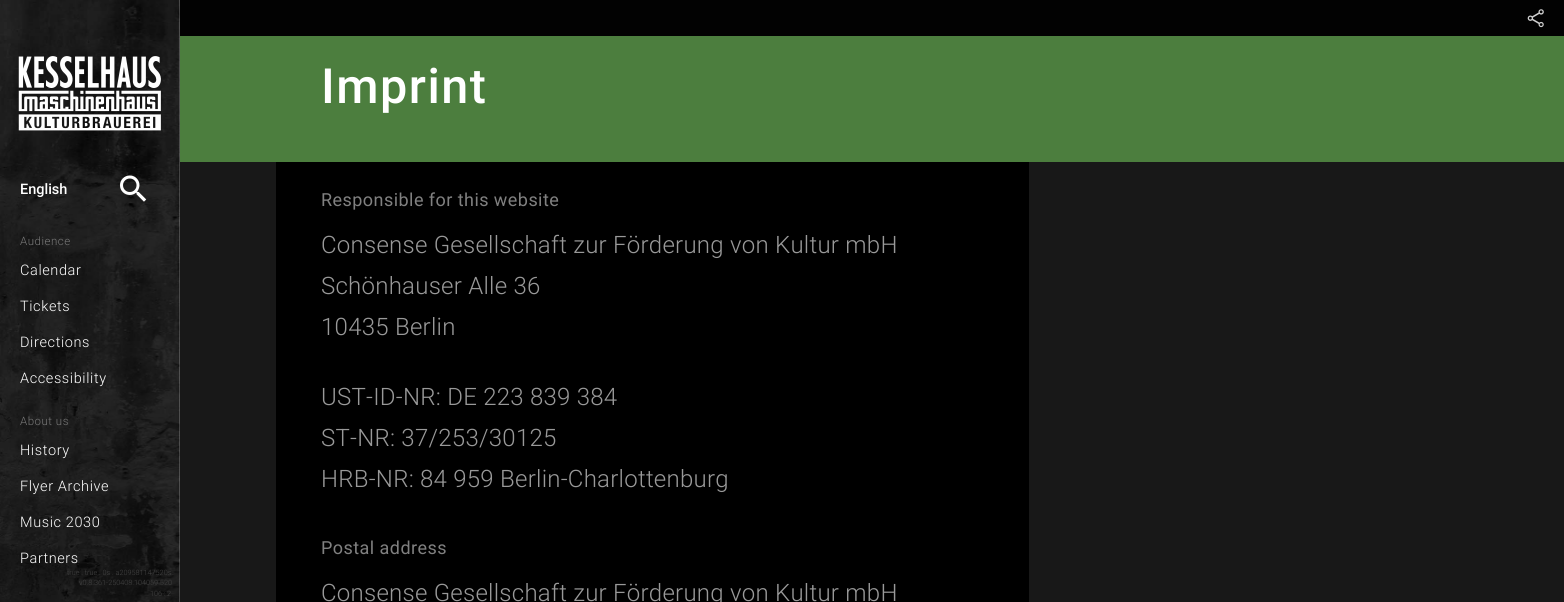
import math
import cairo


def write_spaced(ctx, x, y, s, letter, word):
	ctx.move_to(x, y)
	for ch in s:
		ctx.show_text(ch)
		ctx.rel_move_to(letter + word * (ch == ' '), 0)

def paste(ctx, path, x, y, w, h):
	ctx.save()
	ctx.set_source_surface(cairo.ImageSurface.create_from_png(path), x, y)
	ctx.rectangle(x, y, w, h)
	ctx.fill()
	ctx.restore()

def draw(ctx):
	ctx.set_source_rgb(1, 1, 1)
	ctx.paint()
	paste(ctx, 'media/1.png', 0, 0, 180, 602)
	paste(ctx, 'media/2.png', 18, 56, 143, 75)
	ctx.select_font_face('Roboto Medium')
	ctx.set_font_size(14.5)
	ctx.set_source_rgb(1, 1, 1)
	ctx.move_to(20, 194)
	ctx.show_text('English')
	paste(ctx, 'media/3.png', 120, 175, 27, 27)
	ctx.select_font_face('Roboto Light')
	ctx.set_font_size(11.5)
	ctx.set_source_rgb(0.467, 0.467, 0.467)
	write_spaced(ctx, 20, 245, 'Audience', 0.5, 0)
	ctx.set_font_size(14.5)
	ctx.set_source_rgb(1, 1, 1)
	for x, y, s in [
		(20, 275, 'Calendar'),
		(20, 311, 'Tickets'),
		(20, 347, 'Directions'),
		(20, 383, 'Accessibility'),
	]:
		write_spaced(ctx, x, y, s, 0.6, 0)
	ctx.set_font_size(11.5)
	ctx.set_source_rgb(0.467, 0.467, 0.467)
	write_spaced(ctx, 20, 425, 'About us', 0.5, 0)
	ctx.set_font_size(14.5)
	ctx.set_source_rgb(1, 1, 1)
	for x, y, s in [
		(20, 455, 'History'),
		(20, 491, 'Flyer Archive'),
		(20, 527, 'Music 2030'),
		(20, 563, 'Partners'),
	]:
		write_spaced(ctx, x, y, s, 0.6, 0)
	ctx.set_font_size(7.25)
	ctx.set_source_rgb(0.263, 0.263, 0.263)
	for x, y, s in [
		(67, 575, 'true . true . 0s . a209581147520s'),
		(79, 585, 'v0.8.361-250408.104059.520'),
		(150, 596, '106 : 2'),
	]:
		ctx.move_to(x, y)
		ctx.show_text(s)
	ctx.set_source_rgb(0.008, 0.008, 0.008)
	ctx.rectangle(180, 0, 1384, 36)
	ctx.fill()
	paste(ctx, 'media/4.png', 1527, 9, 17, 19)
	ctx.set_source_rgb(0.298, 0.494, 0.243)
	ctx.rectangle(180, 36, 1384, 126)
	ctx.fill()
	ctx.select_font_face('Roboto Medium')
	ctx.set_font_size(48.5)
	ctx.set_source_rgb(1, 1, 1)
	write_spaced(ctx, 321, 103, 'Imprint', 1.5, 0)
	ctx.set_source_rgb(0.094, 0.094, 0.094)
	ctx.rectangle(180, 162, 1384, 440)
	ctx.fill()
	ctx.set_source_rgb(0, 0, 0)
	ctx.rectangle(276, 162, 753, 440)
	ctx.fill()
	ctx.select_font_face('Roboto')
	ctx.set_font_size(18)
	ctx.set_source_rgb(0.502, 0.502, 0.502)
	write_spaced(ctx, 321, 206, 'Responsible for this website', 0.45, 0)
	ctx.select_font_face('Roboto Light')
	ctx.set_font_size(24)
	ctx.set_source_rgb(0.6, 0.6, 0.6)
	for x, y, s in [
		(321, 253, 'Consense Gesellschaft zur Förderung von Kultur mbH'),
		(321, 294, 'Schönhauser Alle 36'),
		(321, 335, '10435 Berlin'),
		(321, 405, 'UST-ID-NR: DE 223 839 384'),
		(321, 446, 'ST-NR: 37/253/30125'),
		(321, 487, 'HRB-NR: 84 959 Berlin-Charlottenburg'),
	]:
		write_spaced(ctx, x, y, s, 0.25, 0)
	ctx.select_font_face('Roboto')
	ctx.set_font_size(18)
	ctx.set_source_rgb(0.502, 0.502, 0.502)
	write_spaced(ctx, 321, 554, 'Postal address', 0.45, 0)
	ctx.select_font_face('Roboto Light')
	ctx.set_font_size(24)
	ctx.set_source_rgb(0.6, 0.6, 0.6)
	write_spaced(ctx, 321, 601, 'Consense Gesellschaft zur Förderung von Kultur mbH', 0.25, 0)


surface = cairo.ImageSurface(cairo.FORMAT_RGB24, 1564, 602)
ctx = cairo.Context(surface)
options = cairo.FontOptions()
options.set_hint_metrics(cairo.HINT_METRICS_OFF)
options.set_hint_style(cairo.HINT_STYLE_NONE)
ctx.set_font_options(options)
ctx.set_miter_limit(4)
draw(ctx)
surface.write_to_png('image.png')
